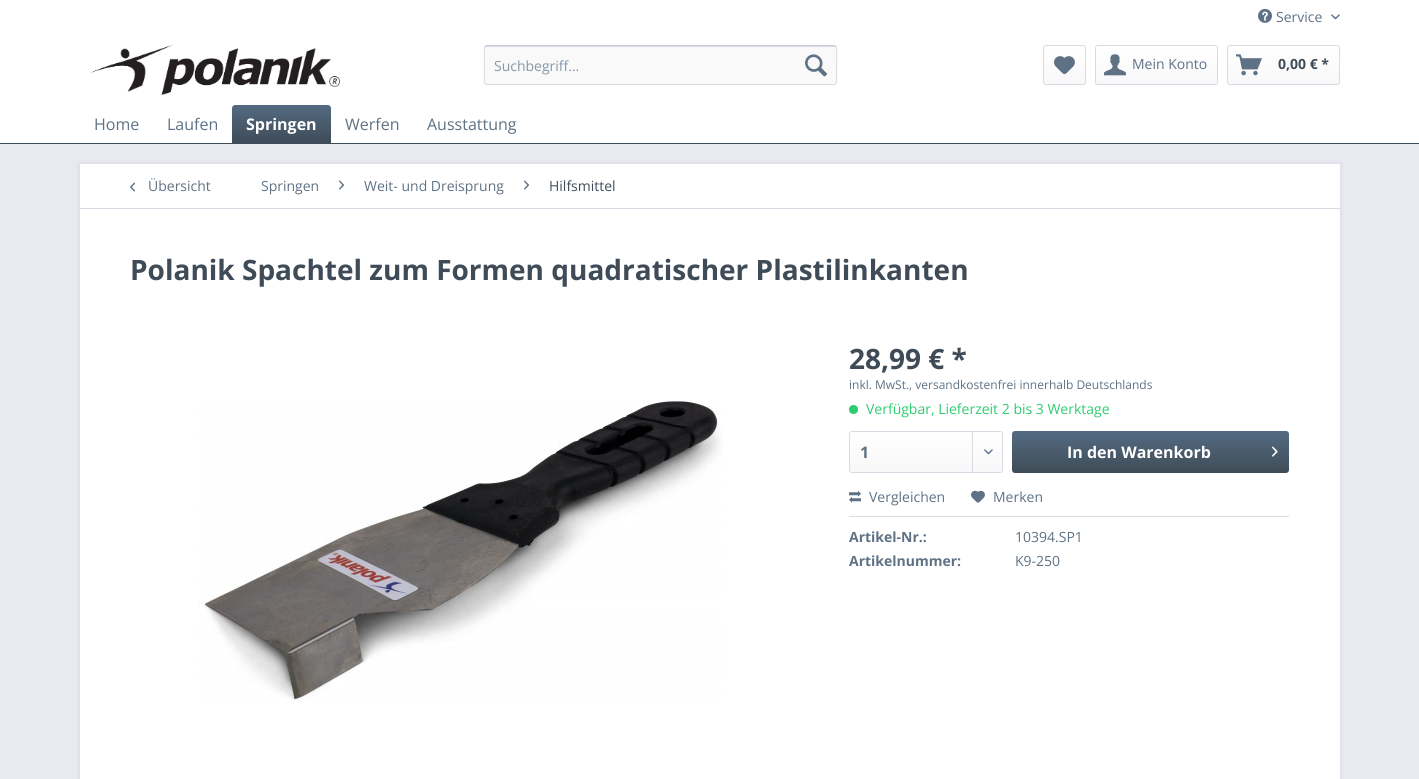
import math
import cairo


def round_path(ctx, x, y, w, h, r):
	ctx.new_sub_path()
	for i, (u, v) in enumerate([(x + w - r, y + h - r), (x + r, y + h - r), (x + r, y + r), (x + w - r, y + r)]):
		ctx.arc(u, v, r, i * math.pi / 2, (i + 1) * math.pi / 2)
	ctx.close_path()

def blur_box(ctx, x, y, w, h, r, blur, alpha):
	ctx.push_group_with_content(cairo.CONTENT_ALPHA)
	ctx.set_operator(cairo.OPERATOR_SOURCE)
	for i in range(15, -16, -2):
		e = blur * i / 6
		if min(w, h) + 2 * e > 0:
			ctx.set_source_rgba(0, 0, 0, alpha * math.erfc((i - 1) / 8.5) / 2)
			round_path(ctx, x - e, y - e, w + 2 * e, h + 2 * e, max(0, min(r + e + blur * .6, min(w, h) / 2 + e)))
			ctx.fill()
	ctx.mask(ctx.pop_group())

def paste(ctx, path, x, y, w, h):
	ctx.save()
	ctx.set_source_surface(cairo.ImageSurface.create_from_png(path), x, y)
	ctx.rectangle(x, y, w, h)
	ctx.fill()
	ctx.restore()

def draw(ctx):
	ctx.set_source_rgb(0.914, 0.914, 0.941)
	ctx.paint()
	ctx.set_source_rgb(1, 1, 1)
	ctx.rectangle(0, 0, 1419, 143)
	ctx.fill()
	paste(ctx, 'media/1.png', 1258, 8, 14, 15)
	ctx.select_font_face('Open Sans')
	ctx.set_font_size(14)
	ctx.set_source_rgb(0.373, 0.447, 0.522)
	ctx.move_to(1276, 22)
	ctx.show_text('Service')
	paste(ctx, 'media/2.png', 1331, 14, 9, 6)
	paste(ctx, 'media/3.png', 90, 45, 250, 50)
	ctx.set_source_rgb(0.973, 0.973, 0.98)
	round_path(ctx, 484, 45, 353, 40, 3)
	ctx.fill()
	ctx.set_source_rgb(0.855, 0.855, 0.898)
	ctx.new_path()
	ctx.move_to(487, 47)
	ctx.line_to(834, 47)
	ctx.curve_to(835, 47, 836, 48, 836, 49)
	ctx.curve_to(836, 48, 836, 46, 834, 46)
	ctx.line_to(487, 46)
	ctx.curve_to(485, 46, 485, 48, 485, 49)
	ctx.curve_to(485, 48, 486, 47, 487, 47)
	ctx.close_path()
	ctx.fill()
	ctx.new_path()
	ctx.move_to(485, 46)
	ctx.line_to(487, 45.5)
	ctx.line_to(834, 45.5)
	ctx.line_to(836, 46)
	ctx.set_source_rgb(0.796, 0.796, 0.859)
	ctx.set_line_width(1)
	ctx.stroke()
	ctx.new_path()
	ctx.move_to(836, 46)
	ctx.curve_to(837.5, 48, 836.5, 67, 836.5, 70.5)
	ctx.line_to(836.5, 76.5)
	ctx.curve_to(836.5, 78, 838, 84.5, 834, 84.5)
	ctx.line_to(487, 84.5)
	ctx.curve_to(483, 84.5, 484.5, 78, 484.5, 76.5)
	ctx.line_to(484.5, 70.5)
	ctx.curve_to(484.5, 67, 483.5, 48, 485, 46)
	ctx.set_source_rgb(0.855, 0.855, 0.898)
	ctx.stroke()
	ctx.set_source_rgb(0.529, 0.596, 0.663)
	ctx.move_to(494, 71)
	ctx.show_text('Suchbegriff...')
	paste(ctx, 'media/4.png', 805, 54, 22, 23)
	gradient = cairo.LinearGradient(1065, 46, 1065, 84)
	gradient.add_color_stop_rgba(0, 1, 1, 1, 1)
	gradient.add_color_stop_rgba(1, 0.973, 0.973, 0.98, 1)
	ctx.set_source(gradient)
	round_path(ctx, 1044, 46, 41, 38, 2)
	ctx.fill()
	round_path(ctx, 1043.5, 45.5, 42, 39, 2.5)
	ctx.set_source_rgb(0.855, 0.855, 0.898)
	ctx.stroke()
	paste(ctx, 'media/5.png', 1054, 56, 21, 19)
	gradient = cairo.LinearGradient(1157, 46, 1157, 84)
	gradient.add_color_stop_rgba(0, 1, 1, 1, 1)
	gradient.add_color_stop_rgba(1, 0.973, 0.973, 0.98, 1)
	ctx.set_source(gradient)
	round_path(ctx, 1096, 46, 121, 38, 2)
	ctx.fill()
	round_path(ctx, 1095.5, 45.5, 122, 39, 2.5)
	ctx.set_source_rgb(0.855, 0.855, 0.898)
	ctx.stroke()
	paste(ctx, 'media/6.png', 1104, 54, 22, 22)
	ctx.set_source_rgb(0.373, 0.447, 0.522)
	ctx.move_to(1132, 69)
	ctx.show_text('Mein Konto')
	gradient = cairo.LinearGradient(1284, 46, 1284, 84)
	gradient.add_color_stop_rgba(0, 1, 1, 1, 1)
	gradient.add_color_stop_rgba(1, 0.973, 0.973, 0.98, 1)
	ctx.set_source(gradient)
	round_path(ctx, 1228, 46, 111, 38, 2)
	ctx.fill()
	round_path(ctx, 1227.5, 45.5, 112, 39, 2.5)
	ctx.set_source_rgb(0.855, 0.855, 0.898)
	ctx.stroke()
	paste(ctx, 'media/7.png', 1236, 54, 26, 22)
	ctx.select_font_face('Open Sans', cairo.FONT_SLANT_NORMAL, cairo.FONT_WEIGHT_BOLD)
	ctx.set_source_rgb(0.247, 0.298, 0.345)
	ctx.move_to(1278, 69)
	ctx.show_text('0,00 € *')
	ctx.rectangle(0, 143, 1419, 1)
	ctx.fill()
	ctx.select_font_face('Open Sans')
	ctx.set_font_size(16)
	ctx.set_source_rgb(0.373, 0.447, 0.522)
	ctx.move_to(94, 130)
	ctx.show_text('Home')
	ctx.move_to(167, 130)
	ctx.show_text('Laufen')
	gradient = cairo.LinearGradient(282, 105, 282, 143)
	gradient.add_color_stop_rgba(0, 0.325, 0.42, 0.506, 1)
	gradient.add_color_stop_rgba(1, 0.247, 0.298, 0.345, 1)
	ctx.set_source(gradient)
	ctx.new_path()
	ctx.move_to(235, 105)
	ctx.line_to(328, 105)
	ctx.curve_to(329.5, 105, 331, 106.5, 331, 108)
	ctx.line_to(331, 143)
	ctx.line_to(232, 143)
	ctx.line_to(232, 108)
	ctx.curve_to(232, 106.5, 233.5, 105, 235, 105)
	ctx.close_path()
	ctx.fill()
	ctx.select_font_face('Open Sans', cairo.FONT_SLANT_NORMAL, cairo.FONT_WEIGHT_BOLD)
	ctx.set_source_rgb(1, 1, 1)
	ctx.move_to(246, 130)
	ctx.show_text('Springen')
	ctx.select_font_face('Open Sans')
	ctx.set_source_rgb(0.373, 0.447, 0.522)
	ctx.move_to(345, 130)
	ctx.show_text('Werfen')
	ctx.move_to(427, 130)
	ctx.show_text('Ausstattung')
	ctx.set_source_rgb(0.855, 0.855, 0.898)
	blur_box(ctx, 79, 163, 1262, 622, 0, 2, 1)
	ctx.set_source_rgb(1, 1, 1)
	ctx.rectangle(80, 164, 1260, 615)
	ctx.fill()
	ctx.set_source_rgb(0.855, 0.855, 0.898)
	ctx.rectangle(80, 208, 1260, 1)
	ctx.fill()
	paste(ctx, 'media/8.png', 130, 182, 5, 10)
	ctx.set_font_size(14)
	ctx.set_source_rgb(0.373, 0.447, 0.522)
	ctx.move_to(148, 191)
	ctx.show_text('Übersicht')
	ctx.move_to(261, 191)
	ctx.show_text('Springen')
	paste(ctx, 'media/9.png', 339, 180, 5, 10)
	ctx.move_to(364, 191)
	ctx.show_text('Weit- und Dreisprung')
	paste(ctx, 'media/9.png', 524, 180, 5, 10)
	ctx.set_source_rgb(0.247, 0.298, 0.345)
	ctx.move_to(549, 191)
	ctx.show_text('Hilfsmittel')
	ctx.select_font_face('Open Sans', cairo.FONT_SLANT_NORMAL, cairo.FONT_WEIGHT_BOLD)
	ctx.set_font_size(28)
	ctx.move_to(130, 280)
	ctx.show_text('Polanik Spachtel zum Formen quadratischer Plastilinkanten')
	paste(ctx, 'media/10.png', 198, 400, 525, 303)
	ctx.move_to(849, 369)
	ctx.show_text('28,99 € *')
	ctx.select_font_face('Open Sans')
	ctx.set_font_size(12)
	ctx.set_source_rgb(0.373, 0.447, 0.522)
	ctx.move_to(849, 389)
	ctx.show_text('inkl. MwSt., versandkostenfrei innerhalb Deutschlands')
	ctx.set_source_rgb(0.18, 0.8, 0.443)
	ctx.new_path()
	ctx.arc(853.5, 409.5, 4.5, 0, 2 * math.pi)
	ctx.fill()
	ctx.set_font_size(14)
	ctx.move_to(866, 414)
	ctx.show_text('Verfügbar, Lieferzeit 2 bis 3 Werktage')
	gradient = cairo.LinearGradient(926, 432, 926, 472)
	gradient.add_color_stop_rgba(0, 1, 1, 1, 1)
	gradient.add_color_stop_rgba(1, 0.973, 0.973, 0.98, 1)
	ctx.set_source(gradient)
	round_path(ctx, 850, 432, 152, 40, 2)
	ctx.fill()
	round_path(ctx, 849.5, 431.5, 153, 41, 2.5)
	ctx.set_source_rgb(0.855, 0.855, 0.898)
	ctx.stroke()
	ctx.select_font_face('Open Sans', cairo.FONT_SLANT_NORMAL, cairo.FONT_WEIGHT_BOLD)
	ctx.set_font_size(16)
	ctx.set_source_rgb(0.373, 0.447, 0.522)
	ctx.move_to(860, 458)
	ctx.show_text('1')
	ctx.set_source_rgb(0.855, 0.855, 0.898)
	ctx.rectangle(972, 432, 1, 40)
	ctx.fill()
	paste(ctx, 'media/11.png', 984, 449, 9, 6)
	gradient = cairo.LinearGradient(1151, 431, 1151, 473)
	gradient.add_color_stop_rgba(0, 0.325, 0.42, 0.506, 1)
	gradient.add_color_stop_rgba(1, 0.247, 0.298, 0.345, 1)
	ctx.set_source(gradient)
	round_path(ctx, 1012, 431, 277, 42, 3)
	ctx.fill()
	ctx.set_source_rgb(1, 1, 1)
	ctx.move_to(1067, 458)
	ctx.show_text('In den Warenkorb')
	paste(ctx, 'media/12.png', 1272, 446, 6, 11)
	ctx.set_source_rgb(0.855, 0.855, 0.898)
	ctx.rectangle(849, 516, 440, 1)
	ctx.fill()
	paste(ctx, 'media/13.png', 849, 490, 12, 13)
	ctx.select_font_face('Open Sans')
	ctx.set_font_size(14)
	ctx.set_source_rgb(0.373, 0.447, 0.522)
	ctx.move_to(869, 502)
	ctx.show_text('Vergleichen')
	paste(ctx, 'media/14.png', 971, 490, 14, 13)
	ctx.move_to(993, 502)
	ctx.show_text('Merken')
	ctx.select_font_face('Open Sans', cairo.FONT_SLANT_NORMAL, cairo.FONT_WEIGHT_BOLD)
	ctx.move_to(849, 542)
	ctx.show_text('Artikel-Nr.:')
	ctx.select_font_face('Open Sans')
	ctx.move_to(1015, 542)
	ctx.show_text('10394.SP1')
	ctx.select_font_face('Open Sans', cairo.FONT_SLANT_NORMAL, cairo.FONT_WEIGHT_BOLD)
	ctx.move_to(849, 566)
	ctx.show_text('Artikelnummer:')
	ctx.select_font_face('Open Sans')
	ctx.move_to(1015, 566)
	ctx.show_text('K9-250')


surface = cairo.ImageSurface(cairo.FORMAT_RGB24, 1419, 779)
ctx = cairo.Context(surface)
options = cairo.FontOptions()
options.set_hint_metrics(cairo.HINT_METRICS_OFF)
options.set_hint_style(cairo.HINT_STYLE_NONE)
ctx.set_font_options(options)
ctx.set_miter_limit(4)
draw(ctx)
surface.write_to_png('image.png')
